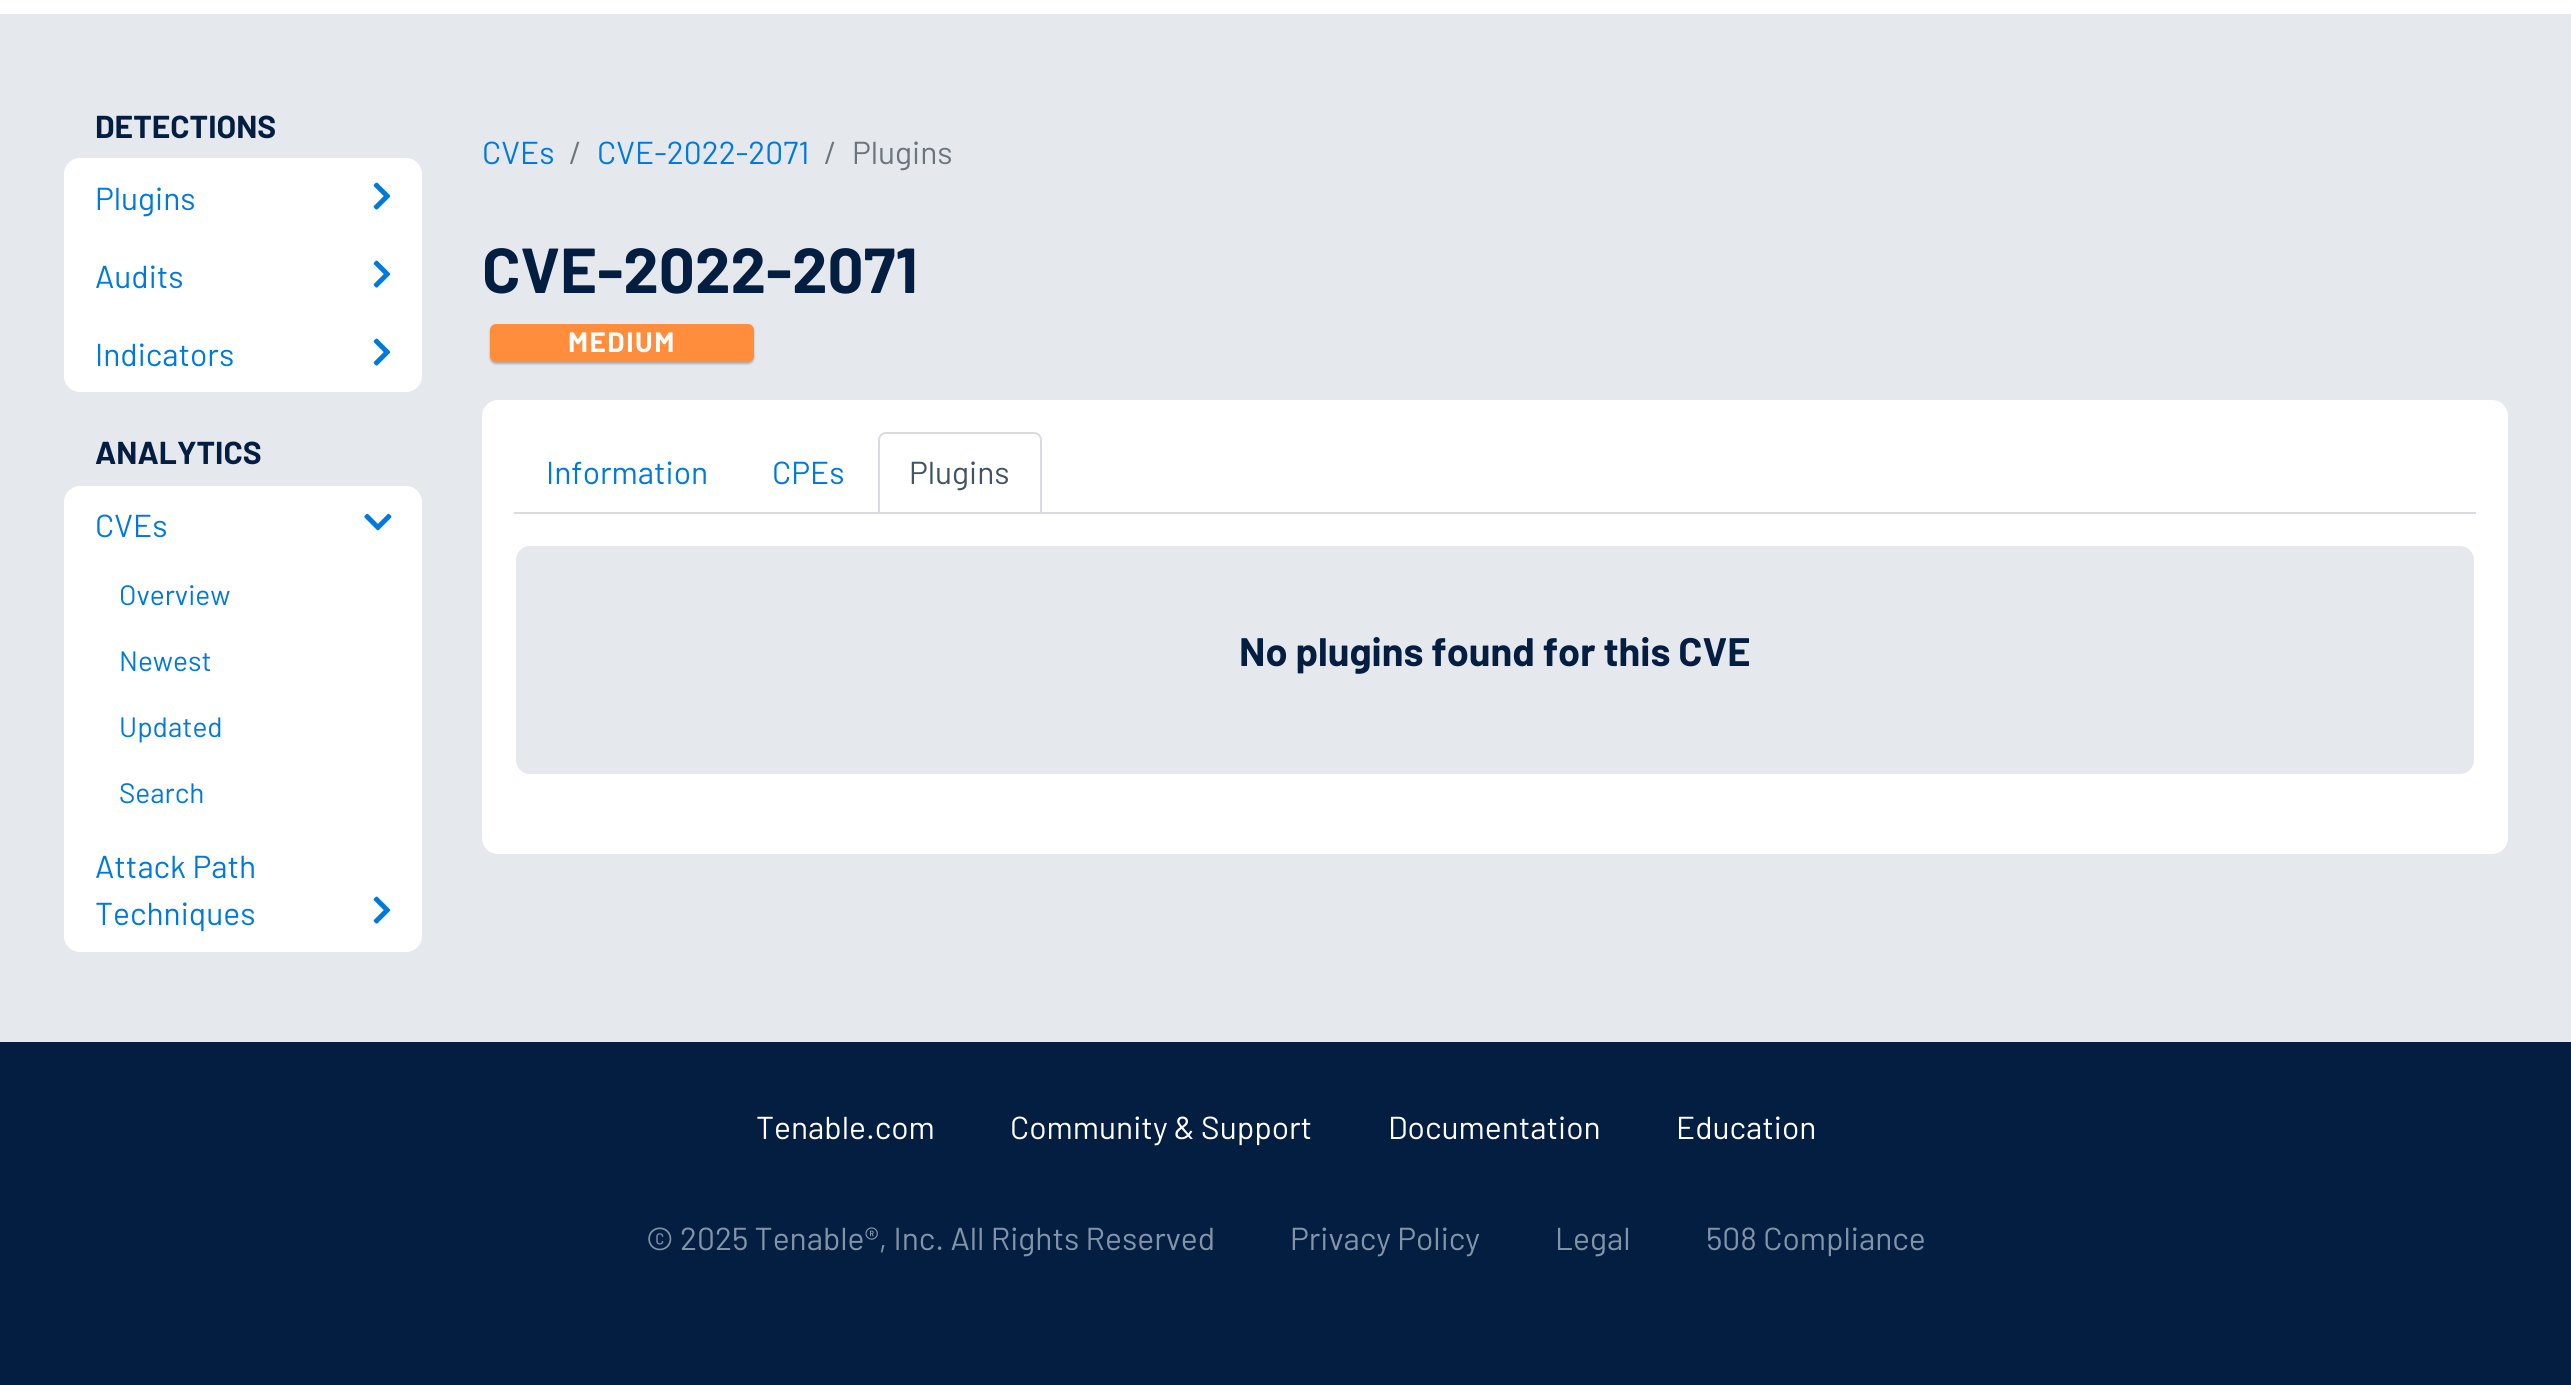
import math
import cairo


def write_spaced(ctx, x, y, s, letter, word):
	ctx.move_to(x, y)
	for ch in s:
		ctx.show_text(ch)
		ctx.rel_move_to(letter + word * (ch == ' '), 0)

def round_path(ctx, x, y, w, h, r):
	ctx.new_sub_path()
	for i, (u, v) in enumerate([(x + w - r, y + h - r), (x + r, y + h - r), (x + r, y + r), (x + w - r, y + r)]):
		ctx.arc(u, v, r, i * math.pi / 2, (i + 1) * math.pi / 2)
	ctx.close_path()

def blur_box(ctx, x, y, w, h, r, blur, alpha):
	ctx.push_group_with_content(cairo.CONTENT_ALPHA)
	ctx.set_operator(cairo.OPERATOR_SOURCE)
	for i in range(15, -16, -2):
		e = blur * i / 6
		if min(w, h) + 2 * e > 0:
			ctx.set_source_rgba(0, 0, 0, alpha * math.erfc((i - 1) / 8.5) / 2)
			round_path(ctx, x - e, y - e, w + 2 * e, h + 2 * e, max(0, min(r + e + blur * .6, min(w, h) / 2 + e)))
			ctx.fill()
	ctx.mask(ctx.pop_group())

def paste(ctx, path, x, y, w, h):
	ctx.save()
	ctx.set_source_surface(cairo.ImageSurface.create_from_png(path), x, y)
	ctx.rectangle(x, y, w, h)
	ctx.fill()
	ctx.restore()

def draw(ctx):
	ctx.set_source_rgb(1, 1, 1)
	ctx.paint()
	ctx.set_source_rgb(0.898, 0.914, 0.929)
	ctx.rectangle(0, 14, 2571, 1028)
	ctx.fill()
	ctx.select_font_face('Barlow', cairo.FONT_SLANT_NORMAL, cairo.FONT_WEIGHT_BOLD)
	ctx.set_font_size(31.75)
	ctx.set_source_rgb(0.016, 0.118, 0.259)
	ctx.move_to(95, 138)
	ctx.show_text('DETECTIONS')
	ctx.set_source_rgb(1, 1, 1)
	round_path(ctx, 64, 158, 358, 234, 16)
	ctx.fill()
	ctx.select_font_face('Barlow')
	ctx.set_source_rgb(0, 0.475, 0.867)
	ctx.move_to(95, 210)
	ctx.show_text('Plugins')
	paste(ctx, 'media/1.png', 373, 182, 18, 28)
	ctx.move_to(95, 288)
	ctx.show_text('Audits')
	paste(ctx, 'media/1.png', 373, 260, 18, 28)
	ctx.move_to(95, 366)
	ctx.show_text('Indicators')
	paste(ctx, 'media/1.png', 373, 338, 18, 28)
	ctx.select_font_face('Barlow', cairo.FONT_SLANT_NORMAL, cairo.FONT_WEIGHT_BOLD)
	ctx.set_source_rgb(0.016, 0.118, 0.259)
	ctx.move_to(95, 464)
	ctx.show_text('ANALYTICS')
	ctx.set_source_rgb(1, 1, 1)
	round_path(ctx, 64, 486, 358, 466, 16)
	ctx.fill()
	ctx.select_font_face('Barlow')
	ctx.set_source_rgb(0, 0.475, 0.867)
	ctx.move_to(95, 537)
	ctx.show_text('CVEs')
	paste(ctx, 'media/2.png', 364, 513, 28, 18)
	ctx.set_font_size(28)
	for x, y, s in [
		(119, 605, 'Overview'),
		(119, 671, 'Newest'),
		(119, 737, 'Updated'),
		(119, 803, 'Search'),
	]:
		ctx.move_to(x, y)
		ctx.show_text(s)
	ctx.set_font_size(31.75)
	ctx.move_to(95, 878)
	ctx.show_text('Attack Path')
	ctx.move_to(95, 925)
	ctx.show_text('Techniques')
	paste(ctx, 'media/1.png', 373, 896, 18, 28)
	ctx.move_to(482, 164)
	ctx.show_text('CVEs')
	ctx.set_source_rgb(0.424, 0.459, 0.49)
	ctx.move_to(569, 164)
	ctx.show_text('/')
	ctx.set_source_rgb(0, 0.475, 0.867)
	ctx.move_to(597, 164)
	ctx.show_text('CVE-2022-2071')
	ctx.set_source_rgb(0.424, 0.459, 0.49)
	ctx.move_to(824, 164)
	ctx.show_text('/')
	ctx.move_to(852, 164)
	ctx.show_text('Plugins')
	ctx.select_font_face('Barlow', cairo.FONT_SLANT_NORMAL, cairo.FONT_WEIGHT_BOLD)
	ctx.set_font_size(63.5)
	ctx.set_source_rgb(0.016, 0.118, 0.259)
	ctx.move_to(482, 293)
	ctx.show_text('CVE-2022-2071')
	ctx.set_source_rgb(0, 0, 0)
	blur_box(ctx, 490, 326, 264, 38, 6, 1, 0.25)
	ctx.set_source_rgb(1, 0.553, 0.235)
	round_path(ctx, 490, 324, 264, 38, 6)
	ctx.fill()
	ctx.set_font_size(28)
	ctx.set_source_rgb(1, 1, 1)
	write_spaced(ctx, 568, 352, 'MEDIUM', 1.5, 0)
	round_path(ctx, 483, 401, 2024, 452, 15)
	ctx.fill_preserve()
	ctx.stroke()
	ctx.set_source_rgb(0.851, 0.859, 0.878)
	ctx.rectangle(514, 512, 1962, 2)
	ctx.fill()
	ctx.select_font_face('Barlow')
	ctx.set_font_size(31.75)
	ctx.set_source_rgb(0, 0.475, 0.867)
	ctx.move_to(546, 484)
	ctx.show_text('Information')
	ctx.move_to(772, 484)
	ctx.show_text('CPEs')
	ctx.set_source_rgb(1, 1, 1)
	ctx.new_path()
	ctx.move_to(886, 433)
	ctx.line_to(1034, 433)
	ctx.curve_to(1038, 433, 1041, 436, 1041, 440)
	ctx.line_to(1041, 513)
	ctx.line_to(879, 513)
	ctx.line_to(879, 440)
	ctx.curve_to(879, 436, 882, 433, 886, 433)
	ctx.close_path()
	ctx.fill_preserve()
	ctx.set_source_rgb(0.851, 0.859, 0.878)
	ctx.stroke()
	ctx.set_source_rgb(0.255, 0.329, 0.396)
	ctx.move_to(909, 484)
	ctx.show_text('Plugins')
	ctx.set_source_rgb(0.898, 0.914, 0.929)
	round_path(ctx, 515, 545, 1960, 230, 15)
	ctx.fill_preserve()
	ctx.set_source_rgb(1, 1, 1)
	ctx.stroke()
	ctx.select_font_face('Barlow', cairo.FONT_SLANT_NORMAL, cairo.FONT_WEIGHT_BOLD)
	ctx.set_font_size(39.75)
	ctx.set_source_rgb(0.016, 0.118, 0.259)
	ctx.move_to(1239, 666)
	ctx.show_text('No plugins found for this CVE')
	ctx.rectangle(0, 1042, 2571, 343)
	ctx.fill()
	ctx.select_font_face('Barlow')
	ctx.set_font_size(31.75)
	ctx.set_source_rgb(1, 1, 1)
	for x, y, s in [
		(756, 1139, 'Tenable.com'),
		(1010, 1139, 'Community & Support'),
		(1388, 1139, 'Documentation'),
		(1676, 1139, 'Education'),
	]:
		ctx.move_to(x, y)
		ctx.show_text(s)
	ctx.set_source_rgb(0.51, 0.58, 0.659)
	for x, y, s in [
		(646, 1250, '© 2025 Tenable®, Inc. All Rights Reserved'),
		(1290, 1250, 'Privacy Policy'),
		(1555, 1250, 'Legal'),
		(1706, 1250, '508 Compliance'),
	]:
		ctx.move_to(x, y)
		ctx.show_text(s)


surface = cairo.ImageSurface(cairo.FORMAT_RGB24, 2571, 1385)
ctx = cairo.Context(surface)
options = cairo.FontOptions()
options.set_hint_metrics(cairo.HINT_METRICS_OFF)
options.set_hint_style(cairo.HINT_STYLE_NONE)
ctx.set_font_options(options)
ctx.set_miter_limit(4)
draw(ctx)
surface.write_to_png('image.png')
